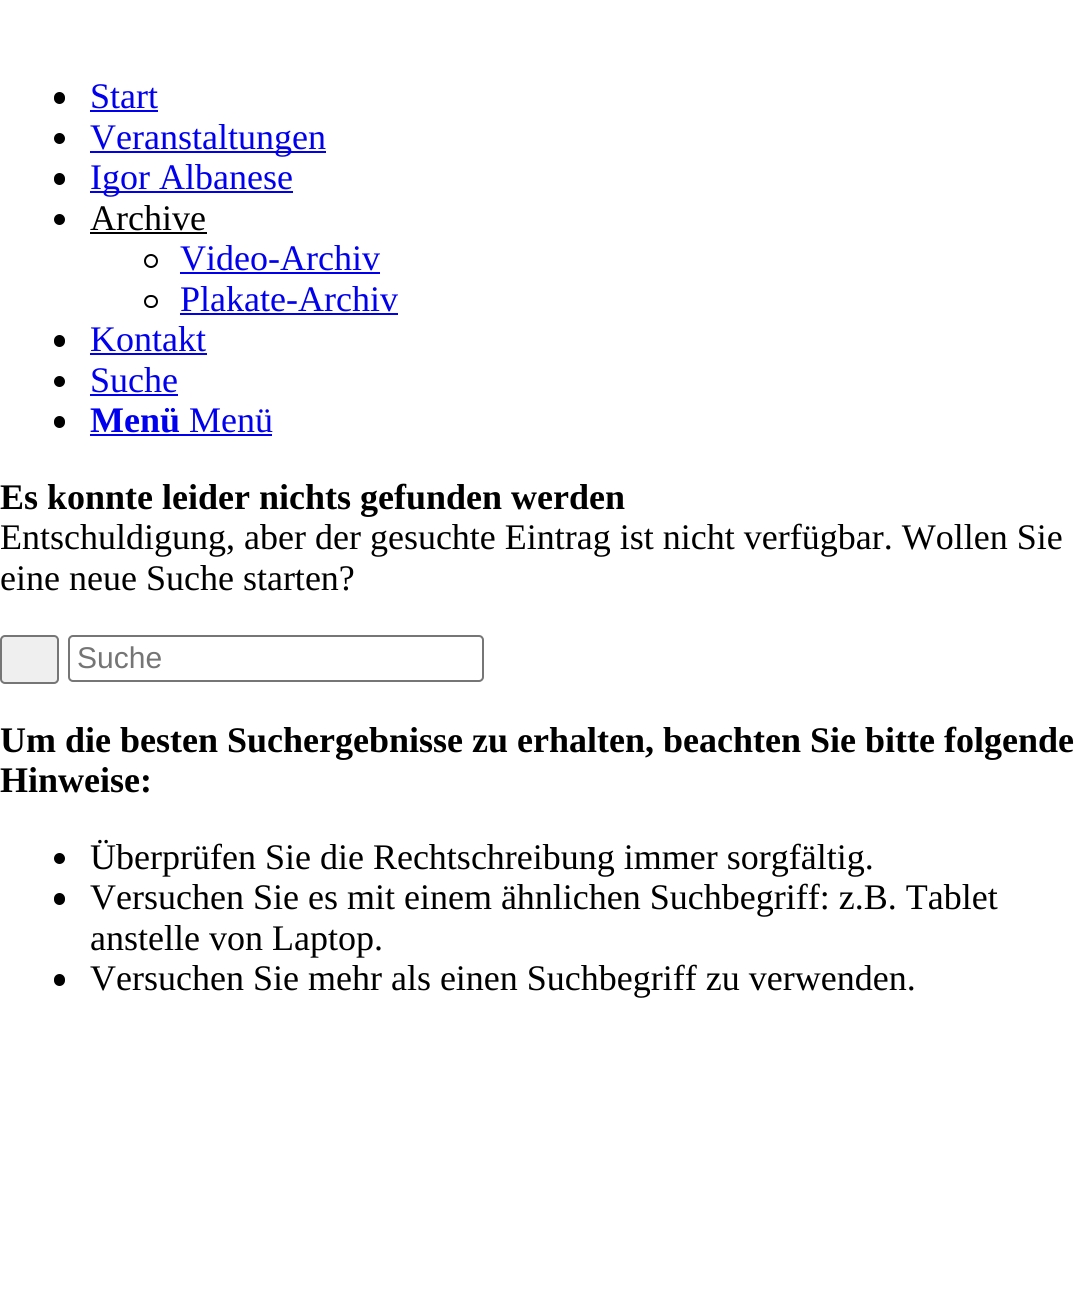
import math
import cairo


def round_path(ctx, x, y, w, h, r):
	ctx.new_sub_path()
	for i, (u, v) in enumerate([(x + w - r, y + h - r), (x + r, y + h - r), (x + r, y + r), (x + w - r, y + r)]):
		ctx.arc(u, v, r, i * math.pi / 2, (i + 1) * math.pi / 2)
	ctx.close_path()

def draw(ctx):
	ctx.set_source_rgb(1, 1, 1)
	ctx.paint()
	ctx.set_source_rgb(0, 0, 0)
	round_path(ctx, 54, 92, 11, 12, 5.5)
	ctx.fill()
	ctx.select_font_face('Liberation Serif')
	ctx.set_font_size(36)
	ctx.set_source_rgb(0, 0, 0.933)
	ctx.move_to(90, 108)
	ctx.show_text('Start')
	ctx.rectangle(90, 110, 68, 2)
	ctx.fill()
	ctx.set_source_rgb(0, 0, 0)
	ctx.arc(59.5, 138.5, 5.5, 0, 2 * math.pi)
	ctx.fill()
	ctx.set_source_rgb(0, 0, 0.933)
	ctx.rectangle(90, 151, 236, 2)
	ctx.fill()
	ctx.move_to(90, 149)
	ctx.show_text('Veranstaltungen')
	ctx.set_source_rgb(0, 0, 0)
	round_path(ctx, 54, 173, 11, 12, 5.5)
	ctx.fill()
	ctx.set_source_rgb(0, 0, 0.933)
	ctx.rectangle(90, 191, 203, 2)
	ctx.fill()
	ctx.move_to(90, 189)
	ctx.show_text('Igor Albanese')
	ctx.set_source_rgb(0, 0, 0)
	ctx.new_path()
	ctx.arc(59.5, 219.5, 5.5, 0, 2 * math.pi)
	ctx.fill()
	ctx.move_to(90, 230)
	ctx.show_text('Archive')
	ctx.rectangle(90, 232, 117, 2)
	ctx.fill()
	ctx.arc(151, 261, 6, 0, 2 * math.pi)
	ctx.stroke()
	ctx.set_source_rgb(0, 0, 0.933)
	ctx.move_to(180, 270)
	ctx.show_text('Video-Archiv')
	ctx.rectangle(180, 272, 200, 2)
	ctx.fill()
	round_path(ctx, 145, 296, 12, 11, 5.5)
	ctx.set_source_rgb(0, 0, 0)
	ctx.stroke()
	ctx.set_source_rgb(0, 0, 0.933)
	ctx.move_to(180, 311)
	ctx.show_text('Plakate-Archiv')
	ctx.rectangle(180, 313, 218, 2)
	ctx.fill()
	ctx.set_source_rgb(0, 0, 0)
	round_path(ctx, 54, 335, 11, 12, 5.5)
	ctx.fill()
	ctx.set_source_rgb(0, 0, 0.933)
	ctx.move_to(90, 351)
	ctx.show_text('Kontakt')
	ctx.rectangle(90, 353, 117, 2)
	ctx.fill()
	ctx.set_source_rgb(0, 0, 0)
	ctx.arc(59.5, 381.5, 5.5, 0, 2 * math.pi)
	ctx.fill()
	ctx.set_source_rgb(0, 0, 0.933)
	ctx.move_to(90, 392)
	ctx.show_text('Suche')
	ctx.rectangle(90, 394, 88, 2)
	ctx.fill()
	ctx.set_source_rgb(0, 0, 0)
	round_path(ctx, 54, 416, 11, 12, 5.5)
	ctx.fill()
	ctx.select_font_face('Liberation Serif', cairo.FONT_SLANT_NORMAL, cairo.FONT_WEIGHT_BOLD)
	ctx.set_source_rgb(0, 0, 0.933)
	ctx.move_to(90, 432)
	ctx.show_text('Menü')
	ctx.select_font_face('Liberation Serif')
	ctx.move_to(189, 432)
	ctx.show_text('Menü')
	ctx.rectangle(90, 434, 182, 2)
	ctx.fill()
	ctx.select_font_face('Liberation Serif', cairo.FONT_SLANT_NORMAL, cairo.FONT_WEIGHT_BOLD)
	ctx.set_source_rgb(0, 0, 0)
	ctx.move_to(0, 509)
	ctx.show_text('Es konnte leider nichts gefunden werden')
	ctx.select_font_face('Liberation Serif')
	ctx.move_to(0, 549)
	ctx.show_text('Entschuldigung, aber der gesuchte Eintrag ist nicht verfügbar. Wollen Sie')
	ctx.move_to(0, 590)
	ctx.show_text('eine neue Suche starten?')
	ctx.set_source_rgb(0.937, 0.937, 0.937)
	round_path(ctx, 1, 636, 57, 47, 4)
	ctx.fill_preserve()
	ctx.set_source_rgb(0.463, 0.463, 0.463)
	ctx.stroke()
	round_path(ctx, 69, 636, 414, 45, 4)
	ctx.stroke()
	ctx.select_font_face('Liberation Sans')
	ctx.set_font_size(30)
	ctx.set_source_rgb(0.459, 0.459, 0.459)
	ctx.move_to(77, 668)
	ctx.show_text('Suche')
	ctx.select_font_face('Liberation Serif', cairo.FONT_SLANT_NORMAL, cairo.FONT_WEIGHT_BOLD)
	ctx.set_font_size(36)
	ctx.set_source_rgb(0, 0, 0)
	ctx.move_to(0, 752)
	ctx.show_text('Um die besten Suchergebnisse zu erhalten, beachten Sie bitte folgende')
	ctx.move_to(0, 792)
	ctx.show_text('Hinweise:')
	ctx.new_path()
	ctx.arc(59.5, 858.5, 5.5, 0, 2 * math.pi)
	ctx.fill()
	ctx.select_font_face('Liberation Serif')
	ctx.move_to(90, 869)
	ctx.show_text('Überprüfen Sie die Rechtschreibung immer sorgfältig.')
	round_path(ctx, 54, 893, 11, 12, 5.5)
	ctx.fill()
	ctx.move_to(90, 909)
	ctx.show_text('Versuchen Sie es mit einem ähnlichen Suchbegriff: z.B. Tablet')
	ctx.move_to(90, 950)
	ctx.show_text('anstelle von Laptop.')
	round_path(ctx, 54, 974, 11, 12, 5.5)
	ctx.fill()
	ctx.move_to(90, 990)
	ctx.show_text('Versuchen Sie mehr als einen Suchbegriff zu verwenden.')


surface = cairo.ImageSurface(cairo.FORMAT_RGB24, 1085, 1309)
ctx = cairo.Context(surface)
options = cairo.FontOptions()
options.set_hint_metrics(cairo.HINT_METRICS_OFF)
options.set_hint_style(cairo.HINT_STYLE_NONE)
ctx.set_font_options(options)
ctx.set_miter_limit(4)
draw(ctx)
surface.write_to_png('image.png')
